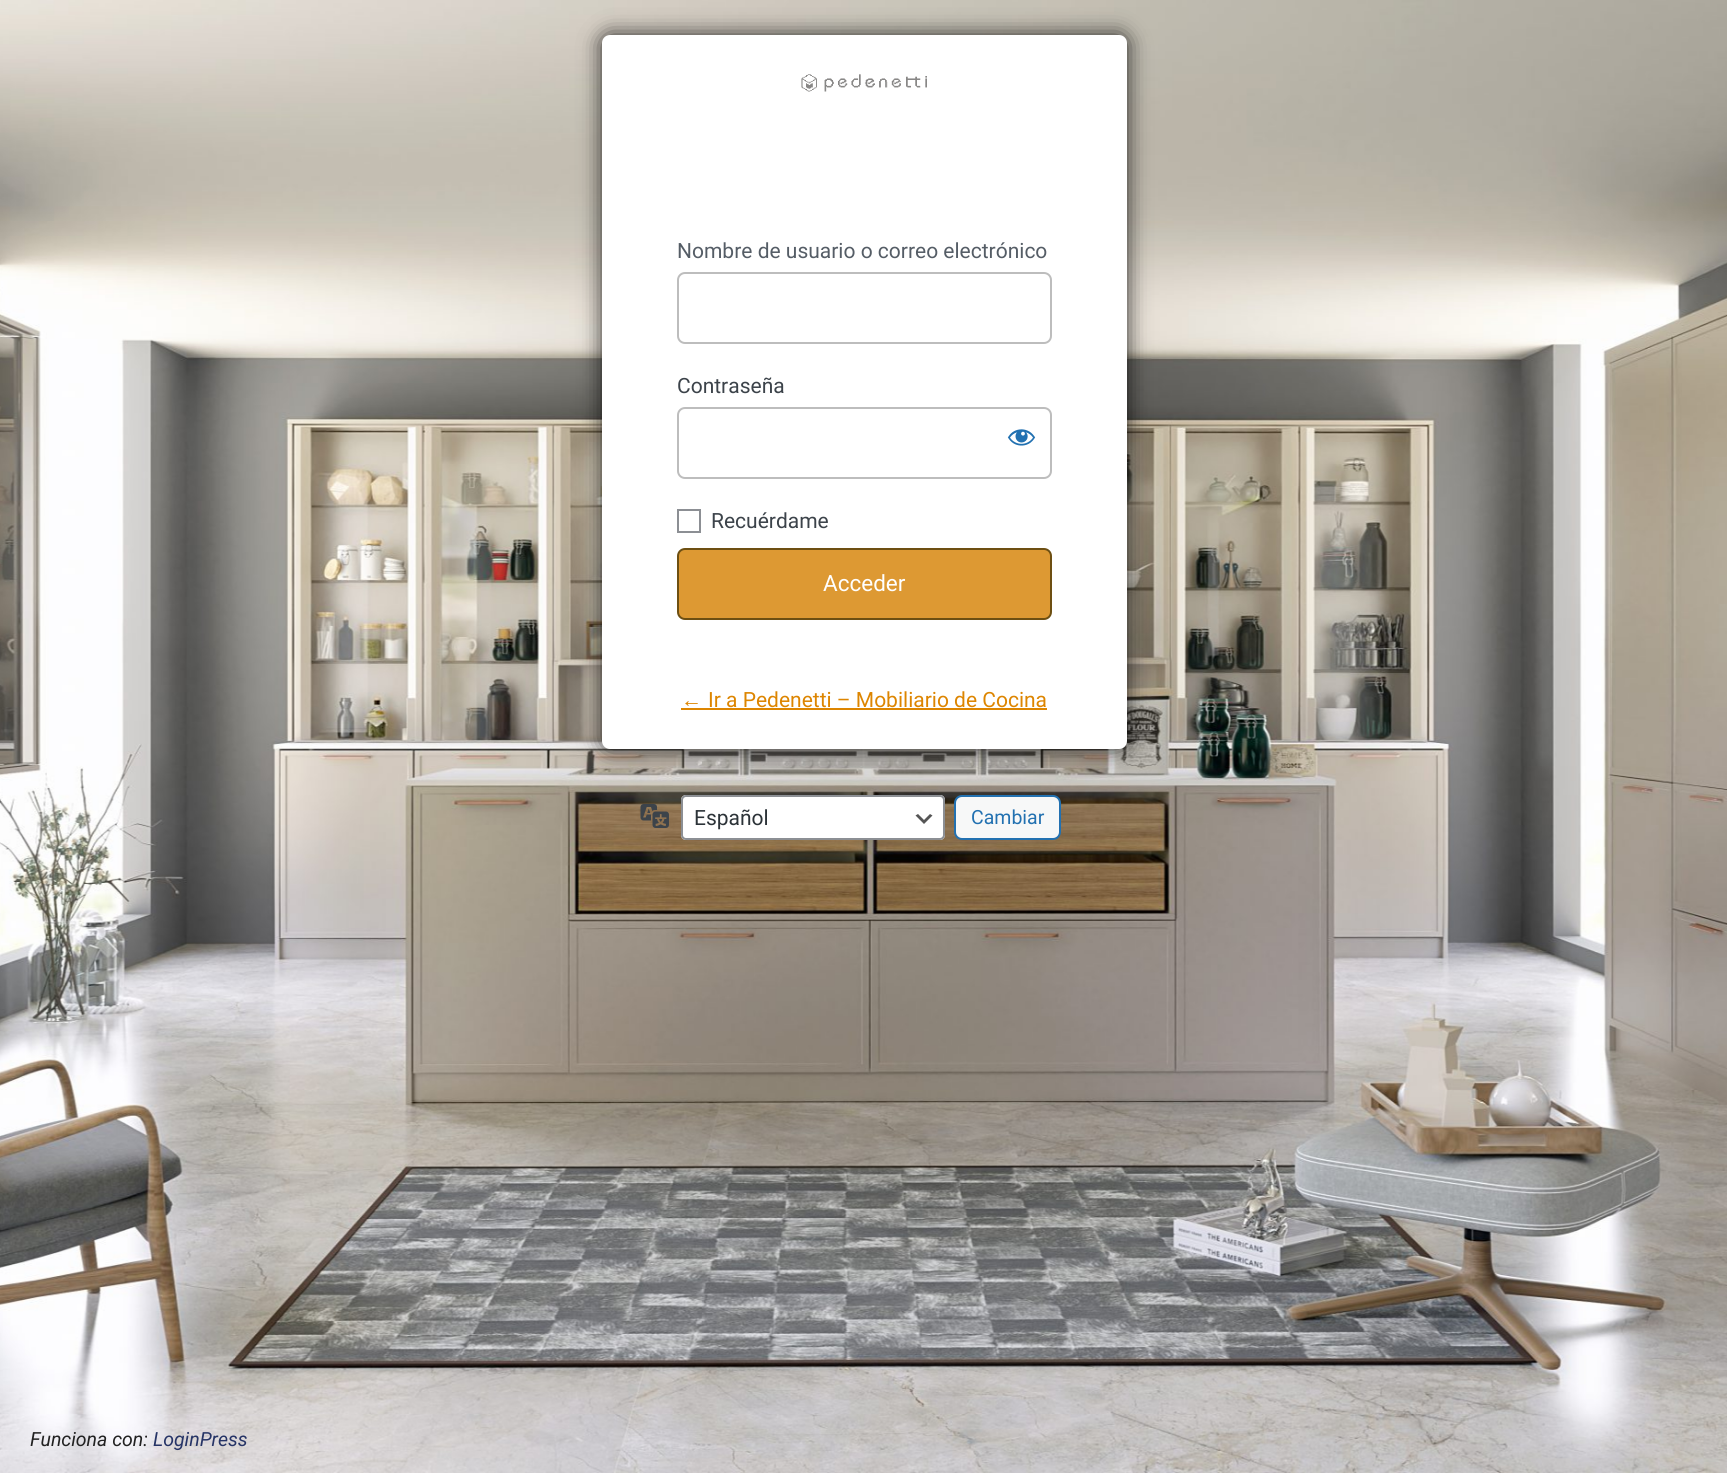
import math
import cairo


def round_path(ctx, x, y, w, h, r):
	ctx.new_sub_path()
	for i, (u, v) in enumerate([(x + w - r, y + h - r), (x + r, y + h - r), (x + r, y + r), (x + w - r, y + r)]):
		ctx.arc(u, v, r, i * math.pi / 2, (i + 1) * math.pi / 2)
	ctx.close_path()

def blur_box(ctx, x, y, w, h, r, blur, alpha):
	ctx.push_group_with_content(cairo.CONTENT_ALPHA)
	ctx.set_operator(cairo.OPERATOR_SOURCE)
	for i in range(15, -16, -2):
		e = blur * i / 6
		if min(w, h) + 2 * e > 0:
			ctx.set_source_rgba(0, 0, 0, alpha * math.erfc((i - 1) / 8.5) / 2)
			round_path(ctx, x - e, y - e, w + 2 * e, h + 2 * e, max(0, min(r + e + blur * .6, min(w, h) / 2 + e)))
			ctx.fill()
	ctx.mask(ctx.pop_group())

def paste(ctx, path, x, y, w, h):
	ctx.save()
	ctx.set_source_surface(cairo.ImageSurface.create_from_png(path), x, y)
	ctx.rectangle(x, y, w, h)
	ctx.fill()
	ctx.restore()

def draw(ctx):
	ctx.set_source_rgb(1, 1, 1)
	ctx.paint()
	paste(ctx, 'media/1.png', 0, 0, 1727, 1473)
	ctx.set_source_rgb(0, 0, 0)
	blur_box(ctx, 602, 35, 525, 714, 8, 11, 0.8)
	ctx.set_source_rgb(1, 1, 1)
	round_path(ctx, 602, 35, 525, 714, 8)
	ctx.fill()
	paste(ctx, 'media/2.png', 801, 74, 126, 18)
	ctx.select_font_face('Roboto')
	ctx.set_font_size(21)
	ctx.set_source_rgb(0.333, 0.365, 0.4)
	ctx.move_to(677, 258)
	ctx.show_text('Nombre de usuario o correo electrónico')
	round_path(ctx, 678, 273, 373, 70, 7)
	ctx.set_source_rgb(0.741, 0.741, 0.741)
	ctx.stroke()
	ctx.set_source_rgb(0.235, 0.263, 0.29)
	ctx.move_to(677, 393)
	ctx.show_text('Contraseña')
	round_path(ctx, 678, 408, 373, 70, 7)
	ctx.set_source_rgb(0.741, 0.741, 0.741)
	ctx.stroke()
	paste(ctx, 'media/3.png', 1007, 429, 29, 17)
	ctx.rectangle(678, 510, 22, 22)
	ctx.set_source_rgb(0.549, 0.561, 0.58)
	ctx.stroke()
	ctx.set_source_rgb(0.235, 0.263, 0.29)
	ctx.move_to(711, 528)
	ctx.show_text('Recuérdame')
	ctx.set_source_rgb(0.867, 0.6, 0.2)
	round_path(ctx, 678, 549, 373, 70, 7)
	ctx.fill_preserve()
	ctx.set_source_rgb(0.427, 0.31, 0.071)
	ctx.stroke()
	ctx.set_font_size(22.5)
	ctx.set_source_rgb(1, 1, 1)
	ctx.move_to(823, 591)
	ctx.show_text('Acceder')
	ctx.select_font_face('Liberation Sans')
	ctx.set_font_size(21)
	ctx.set_source_rgb(0.867, 0.522, 0)
	ctx.move_to(681, 707)
	ctx.show_text('←')
	ctx.rectangle(681, 708, 366, 2)
	ctx.fill()
	ctx.select_font_face('Roboto')
	ctx.move_to(708, 707)
	ctx.show_text('Ir a Pedenetti – Mobiliario de Cocina')
	paste(ctx, 'media/4.png', 640, 804, 29, 24)
	ctx.set_source_rgb(1, 1, 1)
	round_path(ctx, 681, 795, 264, 45, 5)
	ctx.fill()
	ctx.set_source_rgb(0.333, 0.333, 0.333)
	ctx.new_path()
	ctx.move_to(918, 814)
	ctx.line_to(924, 820)
	ctx.line_to(930, 814)
	ctx.line_to(932.5, 815.5)
	ctx.line_to(924, 824)
	ctx.line_to(915.5, 815.5)
	ctx.close_path()
	ctx.fill()
	round_path(ctx, 682, 796, 262, 43, 4)
	ctx.set_source_rgb(0.549, 0.561, 0.58)
	ctx.stroke()
	ctx.set_source_rgb(0.173, 0.2, 0.22)
	ctx.move_to(694, 825)
	ctx.show_text('Español')
	ctx.set_source_rgb(0.965, 0.969, 0.969)
	round_path(ctx, 955, 796, 105, 43, 7)
	ctx.fill_preserve()
	ctx.set_source_rgb(0.133, 0.443, 0.694)
	ctx.stroke()
	ctx.set_font_size(19.5)
	ctx.move_to(971, 824)
	ctx.show_text('Cambiar')
	ctx.select_font_face('Roboto', cairo.FONT_SLANT_ITALIC)
	ctx.set_source_rgb(0.133, 0.133, 0.133)
	ctx.move_to(30, 1446)
	ctx.show_text('Funciona con:')
	ctx.set_source_rgb(0.149, 0.204, 0.4)
	ctx.move_to(153, 1446)
	ctx.show_text('LoginPress')


surface = cairo.ImageSurface(cairo.FORMAT_RGB24, 1727, 1473)
ctx = cairo.Context(surface)
options = cairo.FontOptions()
options.set_hint_metrics(cairo.HINT_METRICS_OFF)
options.set_hint_style(cairo.HINT_STYLE_NONE)
ctx.set_font_options(options)
ctx.set_miter_limit(4)
draw(ctx)
surface.write_to_png('image.png')
